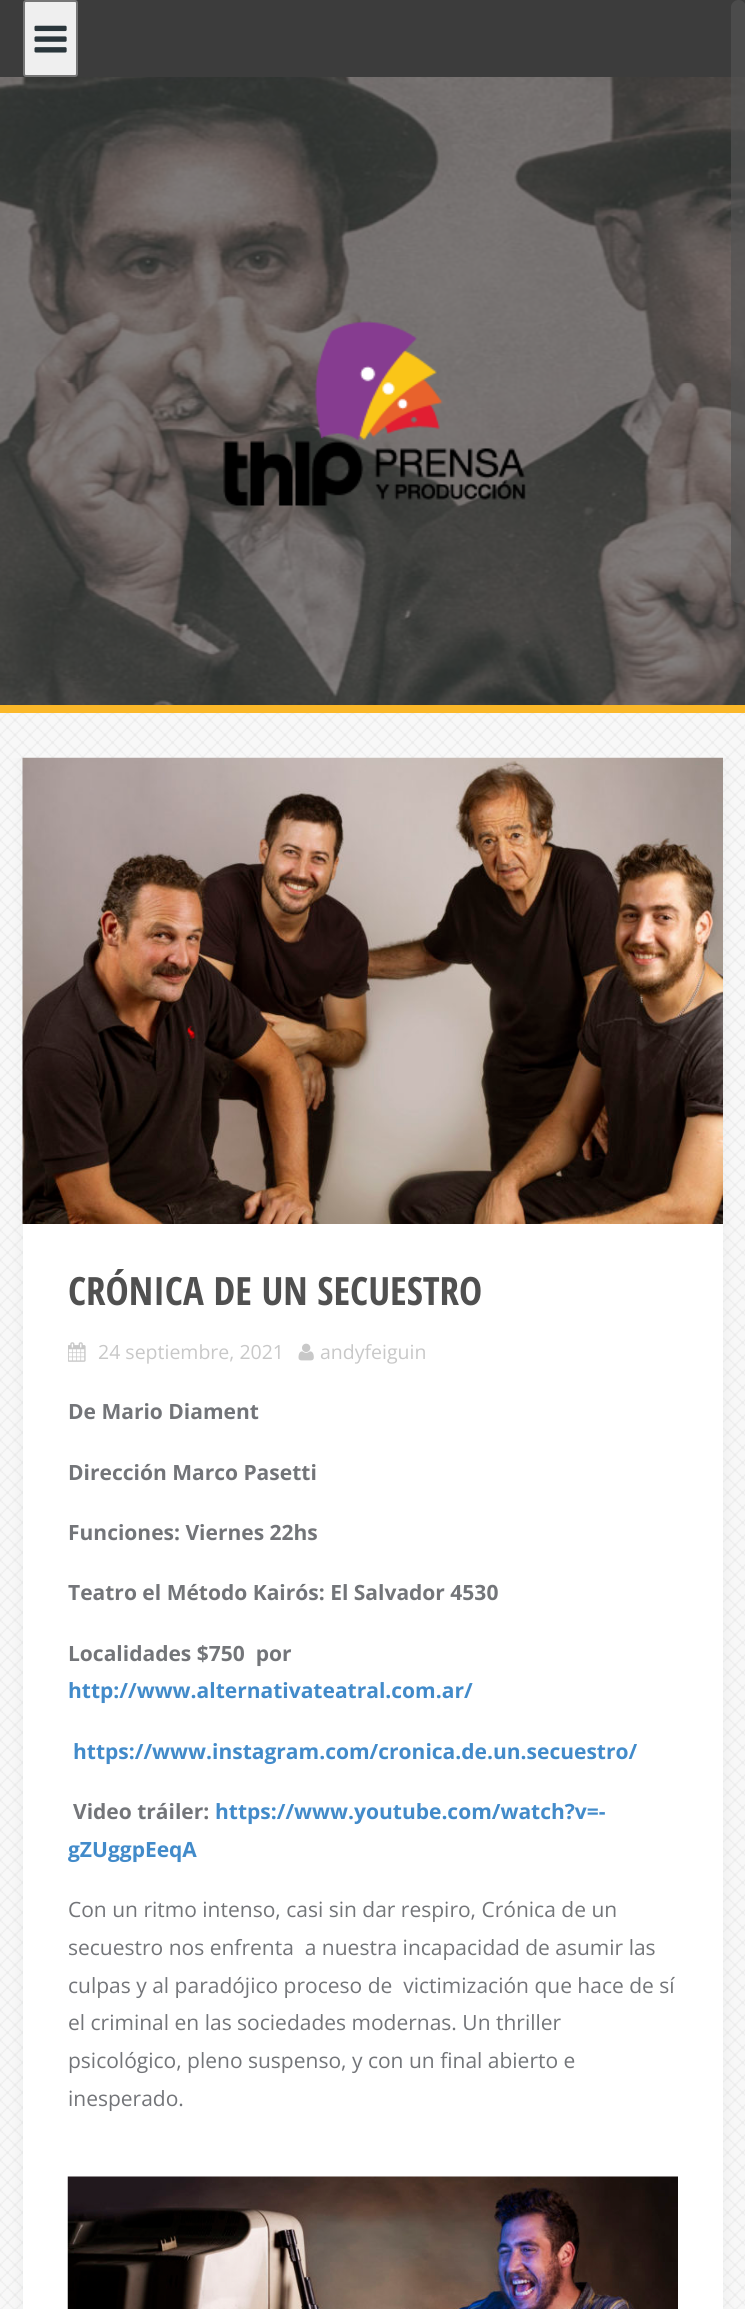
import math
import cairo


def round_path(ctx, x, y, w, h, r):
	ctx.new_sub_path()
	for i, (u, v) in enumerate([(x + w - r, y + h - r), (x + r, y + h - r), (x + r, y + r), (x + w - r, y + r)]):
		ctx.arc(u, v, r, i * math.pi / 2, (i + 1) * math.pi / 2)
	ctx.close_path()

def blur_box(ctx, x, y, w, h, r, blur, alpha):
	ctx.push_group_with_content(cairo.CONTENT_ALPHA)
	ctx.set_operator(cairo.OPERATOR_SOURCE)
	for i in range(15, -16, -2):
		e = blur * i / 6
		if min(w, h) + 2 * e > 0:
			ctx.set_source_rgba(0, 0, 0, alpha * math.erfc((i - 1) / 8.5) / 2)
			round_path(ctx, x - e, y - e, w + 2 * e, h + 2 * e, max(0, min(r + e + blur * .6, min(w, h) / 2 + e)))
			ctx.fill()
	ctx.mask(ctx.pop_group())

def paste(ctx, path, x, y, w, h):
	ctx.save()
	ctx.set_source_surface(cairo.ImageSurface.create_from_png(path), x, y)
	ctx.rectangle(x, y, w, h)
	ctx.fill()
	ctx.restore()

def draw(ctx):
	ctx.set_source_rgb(0.969, 0.969, 0.969)
	ctx.paint()
	paste(ctx, 'media/1.png', 0, 713, 745, 1596)
	ctx.set_source_rgb(0.235, 0.235, 0.235)
	ctx.rectangle(0, 0, 745, 705)
	ctx.fill()
	paste(ctx, 'media/3.png', 0, 77, 745, 628)
	ctx.set_source_rgba(0.322, 0.322, 0.322, 0.68)
	round_path(ctx, 731, 0, 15, 603, 7.5)
	ctx.fill()
	ctx.set_source_rgb(0.984, 0.722, 0.161)
	ctx.rectangle(0, 705, 745, 8)
	ctx.fill()
	ctx.set_source_rgb(0.937, 0.937, 0.937)
	round_path(ctx, 24, 1, 53, 75, 2)
	ctx.fill_preserve()
	ctx.set_source_rgb(0.463, 0.463, 0.463)
	ctx.stroke()
	paste(ctx, 'media/2.png', 34, 25, 33, 28)
	paste(ctx, 'media/4.png', 223, 321, 303, 185)
	ctx.save()
	ctx.rectangle(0, 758, 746, 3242)
	ctx.clip()
	ctx.set_source_rgb(0.51, 0.557, 0.58)
	blur_box(ctx, 23, 758, 700, 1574, 0, 7.5, 0.1)
	ctx.restore()
	ctx.set_source_rgb(1, 1, 1)
	ctx.rectangle(23, 1224, 700, 1085)
	ctx.fill()
	paste(ctx, 'media/5.png', 22, 757, 701, 467)
	ctx.save()
	ctx.rectangle(68, 1269, 610, 101)
	ctx.clip()
	ctx.select_font_face('Open Sans Condensed', cairo.FONT_SLANT_NORMAL, cairo.FONT_WEIGHT_BOLD)
	ctx.set_font_size(39)
	ctx.set_source_rgb(0.314, 0.314, 0.314)
	ctx.move_to(68, 1305)
	ctx.show_text('CRÓNICA DE UN SECUESTRO')
	ctx.restore()
	paste(ctx, 'media/6.png', 68, 1342, 18, 20)
	ctx.select_font_face('Open Sans')
	ctx.set_font_size(19.5)
	ctx.set_source_rgb(0.784, 0.784, 0.784)
	ctx.move_to(98, 1359)
	ctx.show_text('24 septiembre, 2021')
	paste(ctx, 'media/7.png', 298, 1343, 16, 18)
	ctx.move_to(320, 1359)
	ctx.show_text('andyfeiguin')
	ctx.select_font_face('Open Sans', cairo.FONT_SLANT_NORMAL, cairo.FONT_WEIGHT_BOLD)
	ctx.set_font_size(21)
	ctx.set_source_rgb(0.451, 0.459, 0.475)
	for x, y, s in [
		(68, 1419, 'De Mario Diament'),
		(68, 1480, 'Dirección Marco Pasetti'),
		(68, 1540, 'Funciones: Viernes 22hs'),
		(68, 1600, 'Teatro el Método Kairós: El Salvador 4530'),
		(68, 1661, 'Localidades $750  por'),
	]:
		ctx.move_to(x, y)
		ctx.show_text(s)
	ctx.set_source_rgb(0.259, 0.545, 0.792)
	ctx.move_to(68, 1698)
	ctx.show_text('http://www.alternativateatral.com.ar/')
	ctx.move_to(73, 1759)
	ctx.show_text('https://www.instagram.com/cronica.de.un.secuestro/')
	ctx.set_source_rgb(0.451, 0.459, 0.475)
	ctx.move_to(73, 1819)
	ctx.show_text('Video tráiler:')
	ctx.set_source_rgb(0.259, 0.545, 0.792)
	ctx.move_to(215, 1819)
	ctx.show_text('https://www.youtube.com/watch?v=-')
	ctx.save()
	ctx.rectangle(68, 1392, 610, 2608)
	ctx.clip()
	ctx.move_to(68, 1857)
	ctx.show_text('gZUggpEeqA')
	ctx.restore()
	ctx.select_font_face('Open Sans')
	ctx.set_source_rgb(0.451, 0.459, 0.475)
	for x, y, s in [
		(68, 1917, 'Con un ritmo intenso, casi sin dar respiro, Crónica de un'),
		(68, 1955, 'secuestro nos enfrenta  a nuestra incapacidad de asumir las'),
		(68, 1993, 'culpas y al paradójico proceso de  victimización que hace de sí'),
		(68, 2030, 'el criminal en las sociedades modernas. Un thriller'),
		(68, 2068, 'psicológico, pleno suspenso, y con un final abierto e'),
		(68, 2106, 'inesperado.'),
	]:
		ctx.move_to(x, y)
		ctx.show_text(s)
	paste(ctx, 'media/8.png', 67, 2176, 611, 133)


surface = cairo.ImageSurface(cairo.FORMAT_RGB24, 745, 2309)
ctx = cairo.Context(surface)
options = cairo.FontOptions()
options.set_hint_metrics(cairo.HINT_METRICS_OFF)
options.set_hint_style(cairo.HINT_STYLE_NONE)
ctx.set_font_options(options)
ctx.set_miter_limit(4)
draw(ctx)
surface.write_to_png('image.png')
